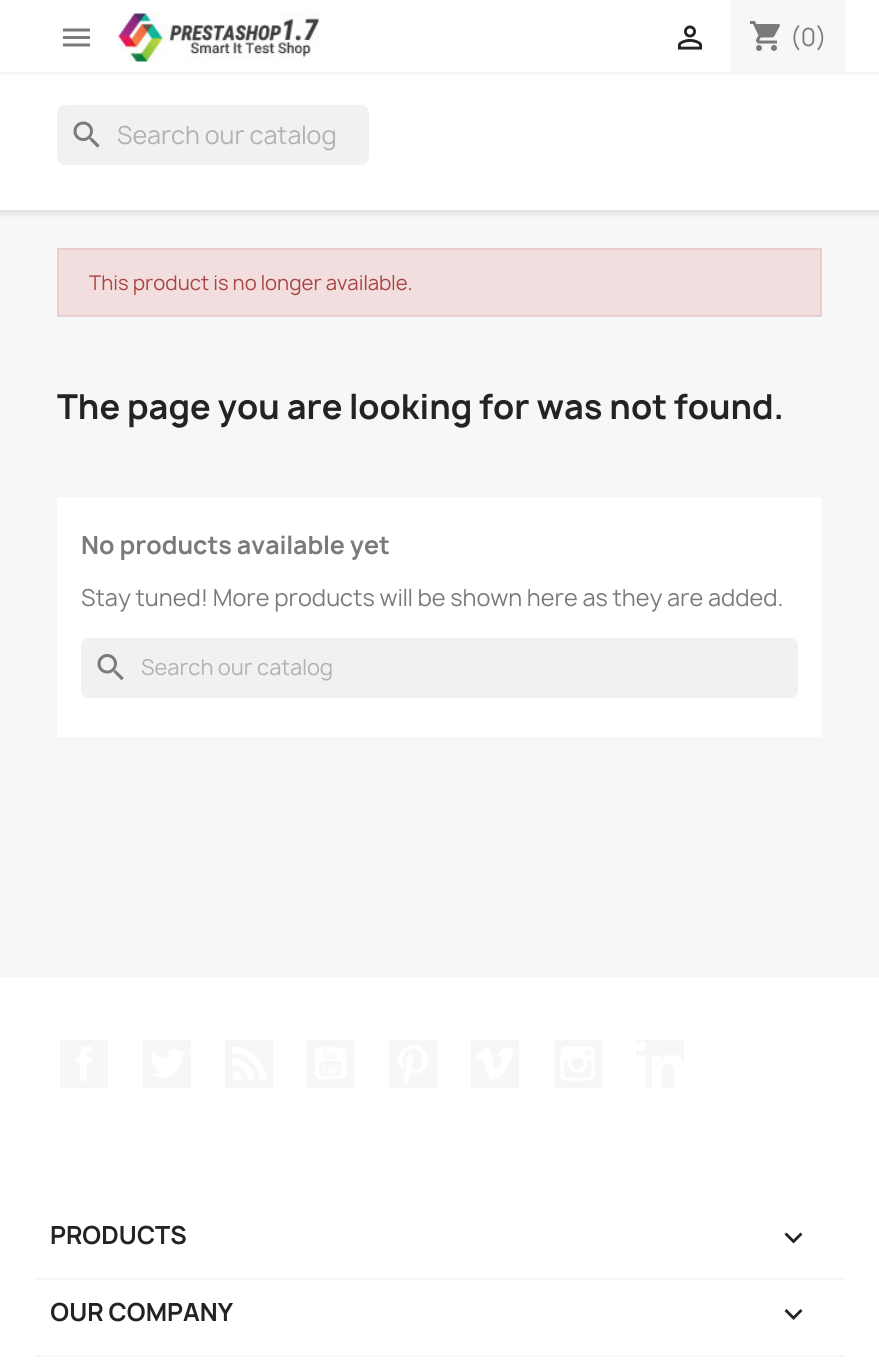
import math
import cairo


def round_path(ctx, x, y, w, h, r):
	ctx.new_sub_path()
	for i, (u, v) in enumerate([(x + w - r, y + h - r), (x + r, y + h - r), (x + r, y + r), (x + w - r, y + r)]):
		ctx.arc(u, v, r, i * math.pi / 2, (i + 1) * math.pi / 2)
	ctx.close_path()

def blur_box(ctx, x, y, w, h, r, blur, alpha):
	ctx.push_group_with_content(cairo.CONTENT_ALPHA)
	ctx.set_operator(cairo.OPERATOR_SOURCE)
	for i in range(15, -16, -2):
		e = blur * i / 6
		if min(w, h) + 2 * e > 0:
			ctx.set_source_rgba(0, 0, 0, alpha * math.erfc((i - 1) / 8.5) / 2)
			round_path(ctx, x - e, y - e, w + 2 * e, h + 2 * e, max(0, min(r + e + blur * .6, min(w, h) / 2 + e)))
			ctx.fill()
	ctx.mask(ctx.pop_group())

def paste(ctx, path, x, y, w, h):
	ctx.save()
	ctx.set_source_surface(cairo.ImageSurface.create_from_png(path), x, y)
	ctx.rectangle(x, y, w, h)
	ctx.fill()
	ctx.restore()

def draw(ctx):
	ctx.set_source_rgb(1, 1, 1)
	ctx.paint()
	ctx.set_source_rgb(0.965, 0.965, 0.965)
	ctx.rectangle(0, 210, 879, 767)
	ctx.fill()
	ctx.save()
	ctx.rectangle(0, 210, 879, 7)
	ctx.clip()
	ctx.set_source_rgb(0, 0, 0)
	blur_box(ctx, 0, 3, 879, 210, 0, 4, 0.11)
	ctx.restore()
	ctx.rectangle(0, 72, 879, 3)
	ctx.fill()
	paste(ctx, 'media/1.png', 63, 28, 27, 19)
	paste(ctx, 'media/2.png', 118, 13, 202, 49)
	paste(ctx, 'media/3.png', 677, 25, 26, 25)
	ctx.rectangle(731, 0, 114, 72)
	ctx.fill()
	paste(ctx, 'media/4.png', 750, 21, 30, 30)
	ctx.select_font_face('Manrope')
	ctx.set_font_size(24)
	ctx.set_source_rgb(0.478, 0.478, 0.478)
	ctx.move_to(790, 46)
	ctx.show_text('(0)')
	ctx.set_source_rgb(0.945, 0.945, 0.945)
	round_path(ctx, 57, 105, 312, 60, 8)
	ctx.fill()
	paste(ctx, 'media/5.png', 73, 121, 27, 27)
	ctx.set_source_rgb(0.694, 0.694, 0.694)
	ctx.move_to(117, 144)
	ctx.show_text('Search our catalog')
	ctx.set_source_rgb(0.949, 0.871, 0.871)
	ctx.rectangle(58, 249, 763, 67)
	ctx.fill_preserve()
	ctx.set_source_rgb(0.922, 0.8, 0.8)
	ctx.stroke()
	ctx.set_font_size(19.5)
	ctx.set_source_rgb(0.663, 0.267, 0.259)
	ctx.move_to(89, 290)
	ctx.show_text('This product is no longer available.')
	ctx.select_font_face('Manrope', cairo.FONT_SLANT_NORMAL, cairo.FONT_WEIGHT_BOLD)
	ctx.set_font_size(33)
	ctx.set_source_rgb(0.137, 0.137, 0.137)
	ctx.move_to(57, 419)
	ctx.show_text('The page you are looking for was not found.')
	ctx.set_source_rgb(1, 1, 1)
	ctx.rectangle(57, 497, 765, 240)
	ctx.fill()
	ctx.set_font_size(24)
	ctx.set_source_rgb(0.478, 0.478, 0.478)
	ctx.move_to(81, 554)
	ctx.show_text('No products available yet')
	ctx.select_font_face('Manrope')
	ctx.set_font_size(22.5)
	ctx.move_to(81, 606)
	ctx.show_text('Stay tuned! More products will be shown here as they are added.')
	ctx.set_source_rgb(0.945, 0.945, 0.945)
	round_path(ctx, 81, 638, 717, 60, 8)
	ctx.fill()
	paste(ctx, 'media/6.png', 97, 654, 27, 27)
	ctx.set_font_size(21)
	ctx.set_source_rgb(0.694, 0.694, 0.694)
	ctx.move_to(141, 675)
	ctx.show_text('Search our catalog')
	ctx.set_source_rgb(0.965, 0.965, 0.965)
	ctx.rectangle(60, 1040, 48, 48)
	ctx.fill()
	paste(ctx, 'media/7.png', 76, 1046, 16, 35)
	ctx.rectangle(143, 1040, 48, 48)
	ctx.fill()
	paste(ctx, 'media/8.png', 151, 1049, 34, 29)
	ctx.rectangle(225, 1040, 48, 48)
	ctx.fill()
	paste(ctx, 'media/9.png', 232, 1047, 34, 34)
	ctx.rectangle(306, 1040, 48, 48)
	ctx.fill()
	paste(ctx, 'media/10.png', 315, 1047, 31, 32)
	ctx.rectangle(389, 1040, 48, 48)
	ctx.fill()
	paste(ctx, 'media/11.png', 398, 1045, 30, 39)
	ctx.rectangle(471, 1040, 48, 48)
	ctx.fill()
	paste(ctx, 'media/12.png', 476, 1048, 37, 32)
	ctx.rectangle(554, 1040, 48, 48)
	ctx.fill()
	paste(ctx, 'media/13.png', 560, 1046, 35, 35)
	ctx.rectangle(636, 1040, 48, 48)
	ctx.fill()
	paste(ctx, 'media/14.png', 636, 1041, 48, 47)
	ctx.rectangle(35, 1278, 810, 2)
	ctx.fill()
	ctx.select_font_face('Manrope', cairo.FONT_SLANT_NORMAL, cairo.FONT_WEIGHT_BOLD)
	ctx.set_font_size(24)
	ctx.set_source_rgb(0.137, 0.137, 0.137)
	ctx.move_to(50, 1244)
	ctx.show_text('PRODUCTS')
	ctx.new_path()
	ctx.move_to(786.5, 1232.5)
	ctx.line_to(793.5, 1239.5)
	ctx.line_to(800.5, 1232.5)
	ctx.line_to(802.5, 1234.5)
	ctx.line_to(793.5, 1243.5)
	ctx.line_to(784.5, 1234.5)
	ctx.close_path()
	ctx.fill()
	ctx.set_source_rgb(0.965, 0.965, 0.965)
	ctx.rectangle(35, 1355, 810, 2)
	ctx.fill()
	ctx.set_source_rgb(0.137, 0.137, 0.137)
	ctx.move_to(50, 1321)
	ctx.show_text('OUR COMPANY')
	ctx.new_path()
	ctx.move_to(786.5, 1309)
	ctx.line_to(793.5, 1316)
	ctx.line_to(800.5, 1309)
	ctx.line_to(802.5, 1311)
	ctx.line_to(793.5, 1320)
	ctx.line_to(784.5, 1311)
	ctx.close_path()
	ctx.fill()


surface = cairo.ImageSurface(cairo.FORMAT_RGB24, 879, 1370)
ctx = cairo.Context(surface)
options = cairo.FontOptions()
options.set_hint_metrics(cairo.HINT_METRICS_OFF)
options.set_hint_style(cairo.HINT_STYLE_NONE)
ctx.set_font_options(options)
ctx.set_miter_limit(4)
draw(ctx)
surface.write_to_png('image.png')
